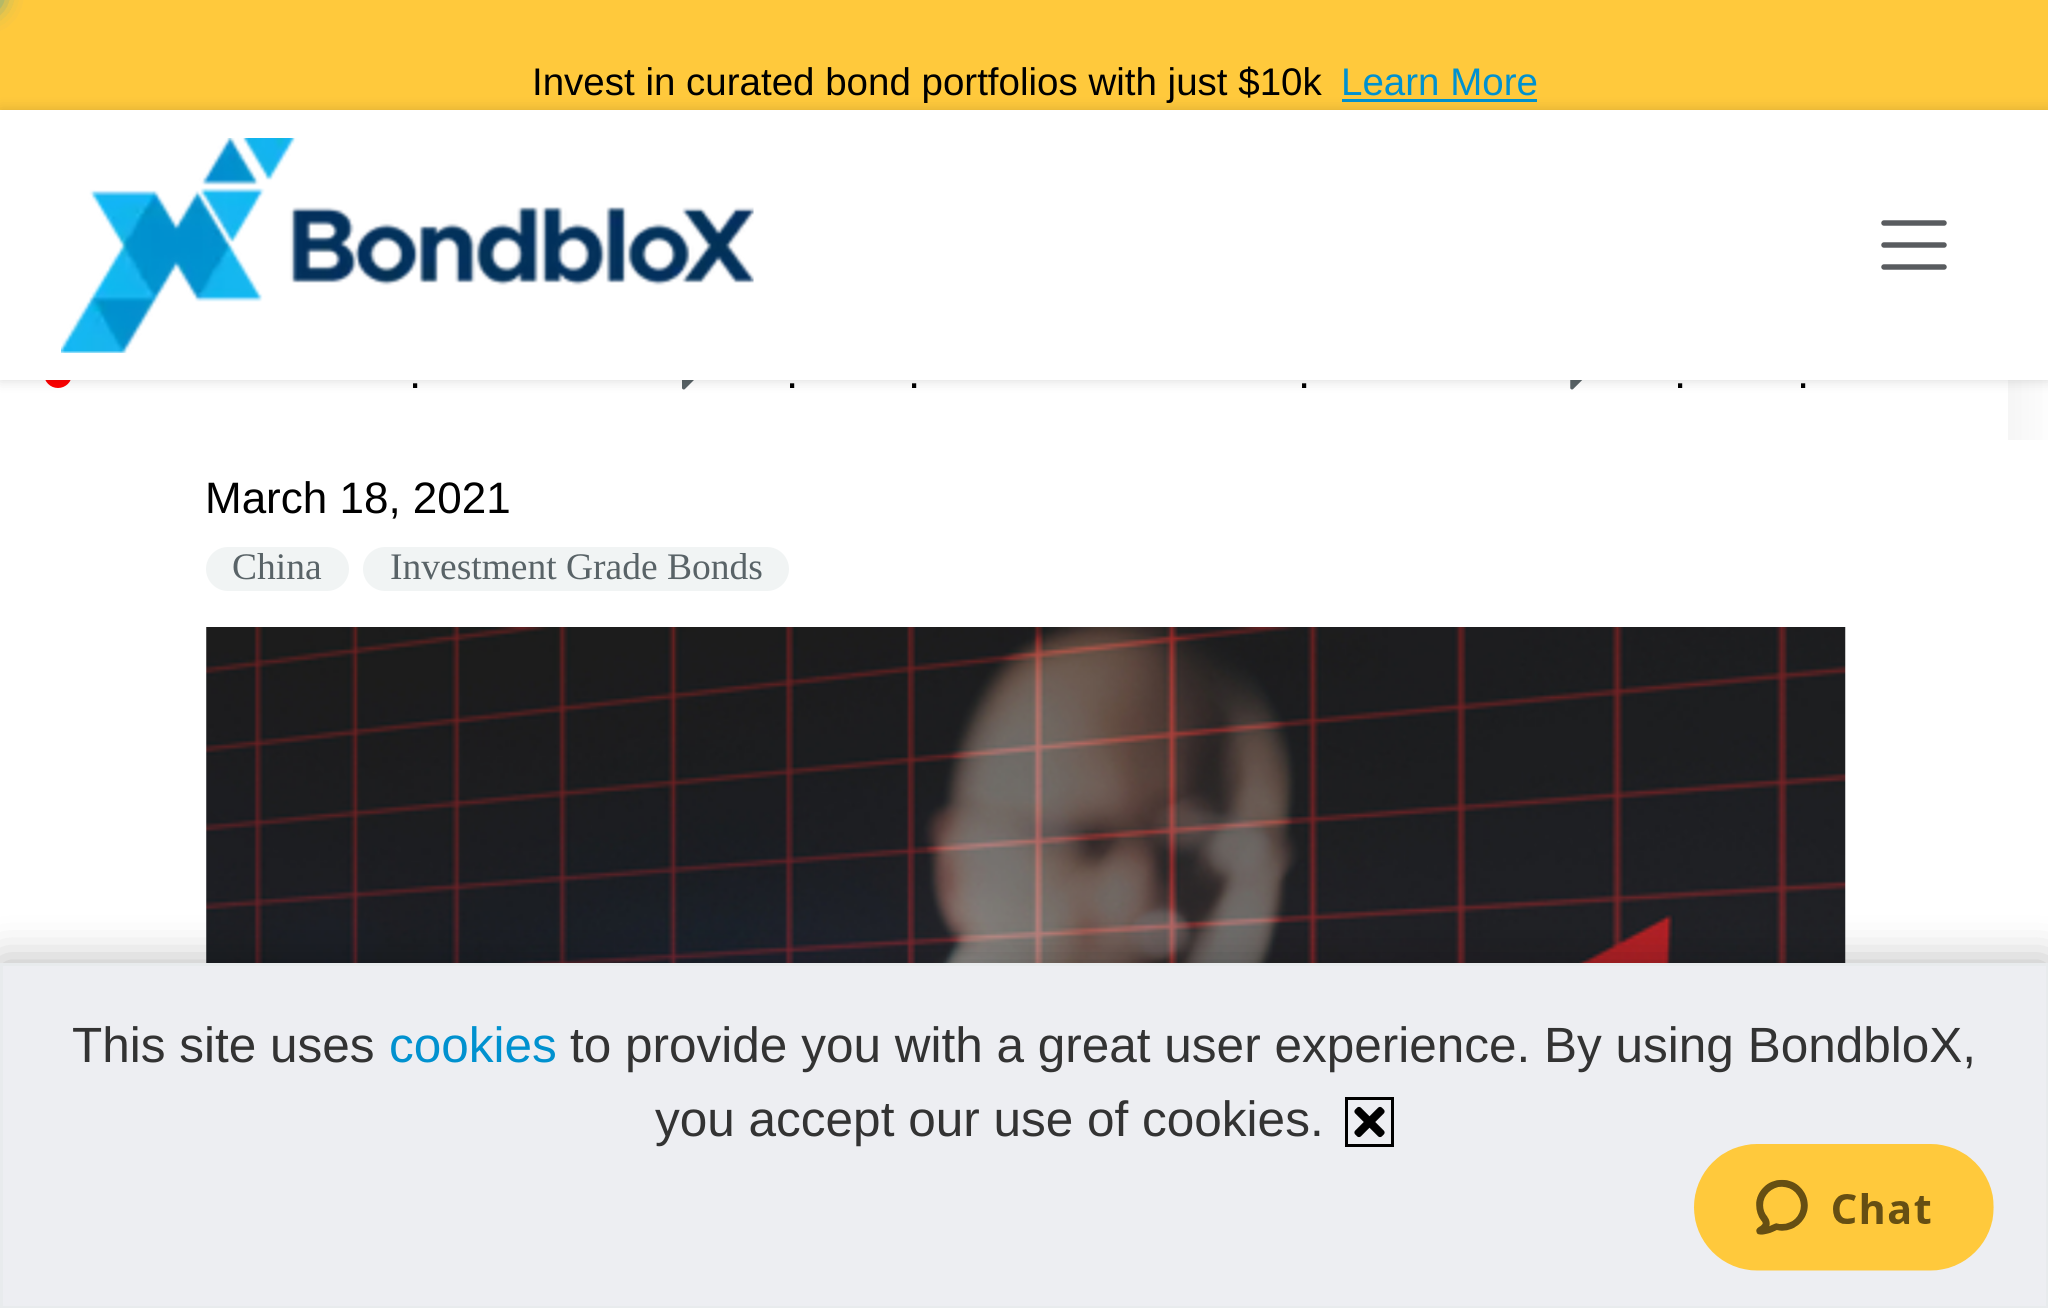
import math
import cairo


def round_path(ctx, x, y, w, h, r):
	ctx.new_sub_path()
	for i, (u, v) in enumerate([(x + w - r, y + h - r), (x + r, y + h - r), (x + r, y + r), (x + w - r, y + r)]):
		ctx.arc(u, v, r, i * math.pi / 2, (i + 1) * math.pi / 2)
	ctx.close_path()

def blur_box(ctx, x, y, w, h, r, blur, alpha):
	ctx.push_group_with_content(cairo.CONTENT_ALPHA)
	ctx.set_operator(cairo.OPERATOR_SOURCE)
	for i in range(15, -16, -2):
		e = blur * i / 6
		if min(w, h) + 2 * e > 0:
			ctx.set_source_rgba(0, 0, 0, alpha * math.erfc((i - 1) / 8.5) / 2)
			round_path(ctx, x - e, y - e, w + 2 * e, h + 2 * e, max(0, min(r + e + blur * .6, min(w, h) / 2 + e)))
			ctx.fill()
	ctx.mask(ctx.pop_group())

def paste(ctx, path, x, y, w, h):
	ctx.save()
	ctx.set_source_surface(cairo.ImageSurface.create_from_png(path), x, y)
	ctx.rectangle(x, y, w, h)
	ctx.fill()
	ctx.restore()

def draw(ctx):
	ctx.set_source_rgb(1, 1, 1)
	ctx.paint()
	ctx.set_source_rgb(1, 0.788, 0.235)
	ctx.rectangle(0, 0, 2048, 110)
	ctx.fill()
	ctx.set_source_rgb(0, 0.569, 0.812)
	blur_box(ctx, -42, -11, 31, 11, 0, 14, 1)
	blur_box(ctx, -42, -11, 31, 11, 0, 14, 1)
	ctx.select_font_face('Liberation Sans')
	ctx.set_font_size(38.5)
	ctx.set_source_rgb(0, 0, 0)
	ctx.move_to(532, 95)
	ctx.show_text('Invest in curated bond portfolios with just $10k')
	ctx.set_source_rgb(0, 0.569, 0.812)
	ctx.move_to(1341, 95)
	ctx.show_text('Learn More')
	ctx.rectangle(1342, 99, 195, 3)
	ctx.fill()
	ctx.set_source_rgb(0.945, 0.957, 0.957)
	round_path(ctx, 206, 547, 143, 44, 22)
	ctx.fill()
	round_path(ctx, 363, 547, 426, 44, 22)
	ctx.fill()
	ctx.save()
	ctx.rectangle(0, 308, 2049, 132)
	ctx.clip()
	ctx.set_source_rgb(0.8, 0.8, 0.8)
	blur_box(ctx, -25, 311, 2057, 181, 0, 20.5, 0.2)
	ctx.restore()
	ctx.set_source_rgb(1, 1, 1)
	ctx.rectangle(0, 380, 2008, 60)
	ctx.fill()
	ctx.set_source_rgb(1, 0, 0)
	ctx.arc(58, 374, 14, 0, 2 * math.pi)
	ctx.fill()
	paste(ctx, 'media/2.png', 682, 380, 12, 10)
	paste(ctx, 'media/3.png', 1570, 380, 13, 10)
	ctx.set_source_rgb(0, 0, 0)
	blur_box(ctx, 0, 110, 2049, 270, 0, 7, 0.15)
	ctx.set_source_rgb(1, 1, 1)
	ctx.rectangle(0, 110, 2048, 270)
	ctx.fill()
	paste(ctx, 'media/1.png', 61, 138, 693, 215)
	ctx.new_path()
	ctx.move_to(1884, 223)
	ctx.line_to(1944, 223)
	ctx.move_to(1884, 245)
	ctx.line_to(1944, 245)
	ctx.move_to(1884, 267)
	ctx.line_to(1944, 267)
	ctx.set_source_rgb(0.349, 0.361, 0.373)
	ctx.set_line_width(5.5)
	ctx.set_line_cap(cairo.LINE_CAP_ROUND)
	ctx.stroke()
	ctx.set_font_size(44)
	ctx.set_source_rgb(0, 0, 0)
	for x, y, s in [
		(409, 388, '.'),
		(786, 388, '.'),
		(908, 388, '.'),
		(1298, 388, '.'),
		(1674, 388, '.'),
		(1797, 388, '.'),
	]:
		ctx.move_to(x, y)
		ctx.show_text(s)
	paste(ctx, 'media/5.png', 206, 627, 1640, 336)
	ctx.set_source_rgb(0, 0, 0)
	blur_box(ctx, 0, 963, 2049, 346, 0, 22, 0.3)
	ctx.set_source_rgb(0.929, 0.933, 0.949)
	ctx.rectangle(1.5, 964.5, 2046, 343)
	ctx.fill_preserve()
	ctx.set_source_rgb(0.91, 0.918, 0.929)
	ctx.set_line_width(3)
	ctx.set_line_cap(cairo.LINE_CAP_BUTT)
	ctx.stroke()
	ctx.set_font_size(49.5)
	ctx.set_source_rgb(0.2, 0.2, 0.2)
	ctx.move_to(72, 1062)
	ctx.show_text('This site uses')
	ctx.set_source_rgb(0, 0.569, 0.812)
	ctx.move_to(389, 1062)
	ctx.show_text('cookies')
	ctx.set_source_rgb(0.2, 0.2, 0.2)
	ctx.move_to(570, 1062)
	ctx.show_text('to provide you with a great user experience. By using BondbloX,')
	ctx.move_to(655, 1136)
	ctx.show_text('you accept our use of cookies.')
	ctx.rectangle(1346.5, 1098.5, 46, 47)
	ctx.set_source_rgb(0, 0, 0)
	ctx.stroke()
	paste(ctx, 'media/4.png', 1354, 1106, 31, 32)
	ctx.set_font_size(44)
	ctx.move_to(205, 513)
	ctx.show_text('March 18, 2021')
	ctx.select_font_face('Liberation Serif')
	ctx.set_font_size(37.5)
	ctx.set_source_rgb(0.349, 0.388, 0.404)
	ctx.move_to(232, 579)
	ctx.show_text('China')
	ctx.move_to(390, 579)
	ctx.show_text('Investment Grade Bonds')
	paste(ctx, 'media/6.png', 1693, 1144, 301, 127)


surface = cairo.ImageSurface(cairo.FORMAT_RGB24, 2048, 1308)
ctx = cairo.Context(surface)
options = cairo.FontOptions()
options.set_hint_metrics(cairo.HINT_METRICS_OFF)
options.set_hint_style(cairo.HINT_STYLE_NONE)
ctx.set_font_options(options)
ctx.set_miter_limit(4)
draw(ctx)
surface.write_to_png('image.png')
